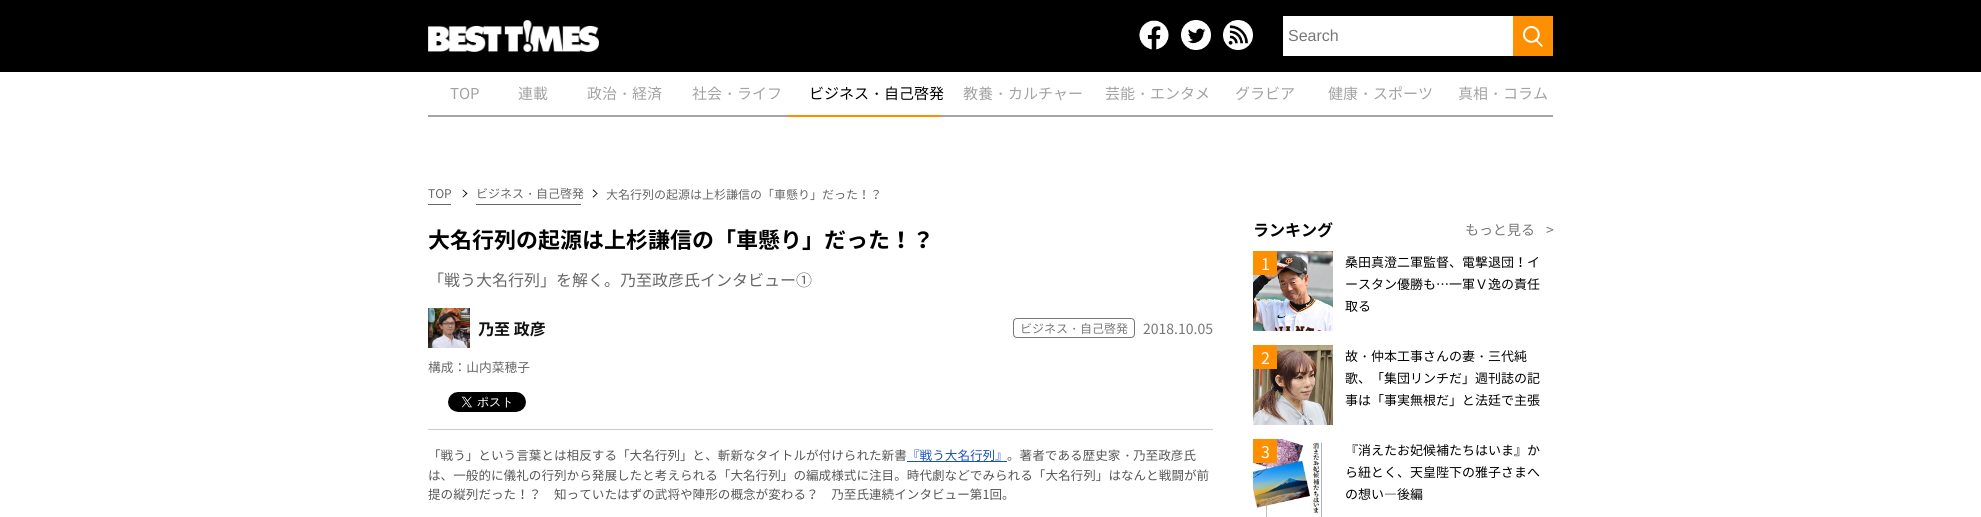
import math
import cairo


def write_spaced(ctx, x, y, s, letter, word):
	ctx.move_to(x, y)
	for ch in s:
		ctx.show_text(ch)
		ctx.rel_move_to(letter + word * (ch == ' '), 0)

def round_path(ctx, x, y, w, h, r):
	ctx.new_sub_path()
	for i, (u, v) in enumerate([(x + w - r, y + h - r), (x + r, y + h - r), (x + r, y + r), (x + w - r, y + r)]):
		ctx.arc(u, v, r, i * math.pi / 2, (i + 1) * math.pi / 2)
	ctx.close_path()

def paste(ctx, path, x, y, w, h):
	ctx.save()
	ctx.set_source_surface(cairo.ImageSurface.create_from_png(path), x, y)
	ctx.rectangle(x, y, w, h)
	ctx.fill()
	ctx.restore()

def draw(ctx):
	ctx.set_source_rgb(1, 1, 1)
	ctx.paint()
	ctx.set_source_rgb(0, 0, 0)
	ctx.rectangle(0, 0, 1981, 72)
	ctx.fill()
	paste(ctx, 'media/1.png', 428, 20, 171, 32)
	paste(ctx, 'media/2.png', 1139, 20, 30, 30)
	paste(ctx, 'media/3.png', 1181, 20, 30, 30)
	paste(ctx, 'media/4.png', 1223, 20, 30, 30)
	ctx.set_source_rgb(1, 1, 1)
	ctx.rectangle(1283, 16, 230, 40)
	ctx.fill()
	ctx.select_font_face('Liberation Sans')
	ctx.set_font_size(16)
	ctx.set_source_rgb(0.467, 0.467, 0.467)
	ctx.move_to(1288, 41)
	ctx.show_text('Search')
	ctx.set_source_rgb(0.992, 0.561, 0)
	ctx.rectangle(1513, 16, 40, 40)
	ctx.fill()
	paste(ctx, 'media/5.png', 1523, 26, 20, 21)
	ctx.set_source_rgb(0.643, 0.643, 0.643)
	ctx.rectangle(428, 115, 359, 2)
	ctx.fill()
	ctx.select_font_face('Noto Sans JP')
	ctx.set_font_size(15)
	ctx.set_source_rgb(0.635, 0.635, 0.635)
	for x, y, s in [
		(450, 99, 'TOP'),
		(518, 99, '連載'),
		(587, 99, '政治'),
	]:
		ctx.move_to(x, y)
		ctx.show_text(s)
	ctx.select_font_face('WenQuanYi Zen Hei Medium')
	ctx.move_to(617, 99)
	ctx.show_text('・')
	ctx.select_font_face('Noto Sans JP')
	ctx.move_to(632, 99)
	ctx.show_text('経済')
	ctx.move_to(692, 99)
	ctx.show_text('社会')
	ctx.select_font_face('WenQuanYi Zen Hei Medium')
	ctx.move_to(722, 99)
	ctx.show_text('・')
	ctx.select_font_face('Noto Sans JP')
	ctx.move_to(737, 99)
	ctx.show_text('ライフ')
	ctx.set_source_rgb(0.992, 0.561, 0)
	ctx.rectangle(787, 115, 154, 2)
	ctx.fill()
	ctx.set_source_rgb(0, 0, 0)
	ctx.move_to(809, 99)
	ctx.show_text('ビジネス')
	ctx.select_font_face('WenQuanYi Zen Hei Medium')
	ctx.move_to(869, 99)
	ctx.show_text('・')
	ctx.select_font_face('Noto Sans JP')
	ctx.move_to(884, 99)
	ctx.show_text('自己啓発')
	ctx.set_source_rgb(0.643, 0.643, 0.643)
	ctx.rectangle(941, 115, 612, 2)
	ctx.fill()
	ctx.set_source_rgb(0.635, 0.635, 0.635)
	ctx.move_to(963, 99)
	ctx.show_text('教養')
	ctx.select_font_face('WenQuanYi Zen Hei Medium')
	ctx.move_to(993, 99)
	ctx.show_text('・')
	ctx.select_font_face('Noto Sans JP')
	ctx.move_to(1008, 99)
	ctx.show_text('カルチャー')
	ctx.move_to(1105, 99)
	ctx.show_text('芸能')
	ctx.select_font_face('WenQuanYi Zen Hei Medium')
	ctx.move_to(1135, 99)
	ctx.show_text('・')
	ctx.select_font_face('Noto Sans JP')
	for x, y, s in [
		(1150, 99, 'エンタメ'),
		(1235, 99, 'グラビア'),
		(1328, 99, '健康'),
	]:
		ctx.move_to(x, y)
		ctx.show_text(s)
	ctx.select_font_face('WenQuanYi Zen Hei Medium')
	ctx.move_to(1358, 99)
	ctx.show_text('・')
	ctx.select_font_face('Noto Sans JP')
	ctx.move_to(1373, 99)
	ctx.show_text('スポーツ')
	ctx.move_to(1458, 99)
	ctx.show_text('真相')
	ctx.select_font_face('WenQuanYi Zen Hei Medium')
	ctx.move_to(1488, 99)
	ctx.show_text('・')
	ctx.select_font_face('Noto Sans JP')
	ctx.move_to(1503, 99)
	ctx.show_text('コラム')
	ctx.set_source_rgb(0.4, 0.4, 0.4)
	ctx.rectangle(428, 204, 23, 1)
	ctx.fill()
	ctx.set_font_size(12)
	ctx.move_to(428, 198)
	ctx.show_text('TOP')
	ctx.set_source_rgb(0, 0, 0)
	ctx.new_path()
	ctx.move_to(463, 189.5)
	ctx.line_to(467.5, 193.5)
	ctx.line_to(466.5, 194)
	ctx.line_to(462.5, 190)
	ctx.close_path()
	ctx.fill()
	ctx.new_path()
	ctx.move_to(466.5, 193)
	ctx.line_to(467.5, 193.5)
	ctx.line_to(463, 197.5)
	ctx.line_to(462.5, 197)
	ctx.close_path()
	ctx.fill()
	ctx.set_source_rgb(0.4, 0.4, 0.4)
	ctx.rectangle(476, 204, 105, 1)
	ctx.fill()
	ctx.move_to(476, 198)
	ctx.show_text('ビジネス')
	ctx.select_font_face('WenQuanYi Zen Hei Medium')
	ctx.move_to(524, 198)
	ctx.show_text('・')
	ctx.select_font_face('Noto Sans JP')
	ctx.move_to(536, 198)
	ctx.show_text('自己啓発')
	ctx.set_source_rgb(0, 0, 0)
	ctx.new_path()
	ctx.move_to(593.5, 189.5)
	ctx.line_to(597.5, 193.5)
	ctx.line_to(597, 194)
	ctx.line_to(592.5, 190)
	ctx.close_path()
	ctx.fill()
	ctx.new_path()
	ctx.move_to(597, 193)
	ctx.line_to(597.5, 193.5)
	ctx.line_to(593.5, 197.5)
	ctx.line_to(592.5, 197)
	ctx.close_path()
	ctx.fill()
	ctx.set_source_rgb(0.4, 0.4, 0.4)
	ctx.move_to(606, 199)
	ctx.show_text('大名行列の起源は上杉謙信の「車懸り」だった！？')
	ctx.select_font_face('Noto Sans JP', cairo.FONT_SLANT_NORMAL, cairo.FONT_WEIGHT_BOLD)
	ctx.set_font_size(22)
	ctx.set_source_rgb(0, 0, 0)
	ctx.move_to(428, 248)
	ctx.show_text('大名行列の起源は上杉謙信の「車懸り」だった！？')
	ctx.select_font_face('Noto Sans JP')
	ctx.set_font_size(16)
	ctx.set_source_rgb(0.4, 0.4, 0.4)
	ctx.move_to(428, 286)
	ctx.show_text('「戦う大名行列」を解く。乃至政彦氏インタビュー①')
	paste(ctx, 'media/6.png', 428, 308, 42, 40)
	ctx.select_font_face('Noto Sans JP', cairo.FONT_SLANT_NORMAL, cairo.FONT_WEIGHT_BOLD)
	ctx.set_source_rgb(0.067, 0.067, 0.067)
	ctx.move_to(478, 335)
	ctx.show_text('乃至 政彦')
	round_path(ctx, 1013.5, 318.5, 121, 19, 3.5)
	ctx.set_source_rgb(0.467, 0.467, 0.467)
	ctx.set_line_width(1)
	ctx.stroke()
	ctx.select_font_face('Noto Sans JP')
	ctx.set_font_size(12)
	ctx.move_to(1020, 333)
	ctx.show_text('ビジネス')
	ctx.select_font_face('WenQuanYi Zen Hei Medium')
	ctx.move_to(1068, 333)
	ctx.show_text('・')
	ctx.select_font_face('Noto Sans JP')
	ctx.move_to(1080, 333)
	ctx.show_text('自己啓発')
	ctx.set_font_size(14)
	ctx.move_to(1143, 334)
	ctx.show_text('2018.10.05')
	ctx.set_font_size(12.75)
	ctx.set_source_rgb(0.4, 0.4, 0.4)
	ctx.move_to(428, 372)
	ctx.show_text('構成：山内菜穂子')
	paste(ctx, 'media/7.png', 448, 392, 78, 20)
	ctx.set_source_rgb(0.8, 0.8, 0.8)
	ctx.rectangle(428, 429, 785, 1)
	ctx.fill()
	ctx.set_font_size(12.6)
	ctx.set_source_rgb(0.333, 0.333, 0.333)
	ctx.move_to(428, 460)
	ctx.show_text('「戦う」という言葉とは相反する「大名行列」と、斬新なタイトルが付けられた新書')
	ctx.set_source_rgb(0.102, 0.314, 0.718)
	ctx.rectangle(907, 461, 100, 1)
	ctx.fill()
	ctx.move_to(907, 460)
	ctx.show_text('『戦う大名行列』')
	ctx.set_source_rgb(0.333, 0.333, 0.333)
	ctx.move_to(1007, 460)
	ctx.show_text('。著者である歴史家')
	ctx.select_font_face('WenQuanYi Zen Hei Medium')
	ctx.move_to(1121, 460)
	ctx.show_text('・')
	ctx.select_font_face('Noto Sans JP')
	for x, y, s in [
		(1133, 460, '乃至政彦氏'),
		(428, 480, 'は、一般的に儀礼の行列から発展したと考えられる「大名行列」の編成様式に注目。時代劇などでみられる「大名行列」はなんと戦闘が前'),
		(428, 499, '提の縦列だった！？　知っていたはずの武将や陣形の概念が変わる？　乃至氏連続インタビュー第1回。'),
	]:
		ctx.move_to(x, y)
		ctx.show_text(s)
	ctx.select_font_face('Noto Sans JP', cairo.FONT_SLANT_NORMAL, cairo.FONT_WEIGHT_BOLD)
	ctx.set_font_size(16)
	ctx.set_source_rgb(0, 0, 0)
	ctx.move_to(1253, 236)
	ctx.show_text('ランキング')
	ctx.select_font_face('Noto Sans JP')
	ctx.set_font_size(14)
	ctx.set_source_rgb(0.467, 0.467, 0.467)
	ctx.move_to(1465, 235)
	ctx.show_text('もっと見る')
	write_spaced(ctx, 1546, 235, '>', -2, 0)
	paste(ctx, 'media/8.png', 1253, 251, 80, 80)
	ctx.set_source_rgb(0.992, 0.561, 0)
	ctx.rectangle(1253, 251, 24, 24)
	ctx.fill()
	ctx.set_font_size(16)
	ctx.set_source_rgb(1, 1, 1)
	ctx.move_to(1261, 270)
	ctx.show_text('1')
	ctx.set_font_size(13)
	ctx.set_source_rgb(0, 0, 0)
	for x, y, s in [
		(1345, 267, '桑田真澄二軍監督、電撃退団！イ'),
		(1345, 289, 'ースタン優勝も…一軍Ｖ逸の責任'),
		(1345, 311, '取る'),
	]:
		ctx.move_to(x, y)
		ctx.show_text(s)
	paste(ctx, 'media/9.png', 1253, 345, 80, 80)
	ctx.set_source_rgb(0.992, 0.561, 0)
	ctx.rectangle(1253, 345, 24, 24)
	ctx.fill()
	ctx.set_font_size(16)
	ctx.set_source_rgb(1, 1, 1)
	ctx.move_to(1261, 364)
	ctx.show_text('2')
	ctx.set_font_size(13)
	ctx.set_source_rgb(0, 0, 0)
	ctx.move_to(1345, 361)
	ctx.show_text('故')
	ctx.select_font_face('WenQuanYi Zen Hei Medium')
	ctx.move_to(1358, 361)
	ctx.show_text('・')
	ctx.select_font_face('Noto Sans JP')
	ctx.move_to(1371, 361)
	ctx.show_text('仲本工事さんの妻')
	ctx.select_font_face('WenQuanYi Zen Hei Medium')
	ctx.move_to(1475, 361)
	ctx.show_text('・')
	ctx.select_font_face('Noto Sans JP')
	for x, y, s in [
		(1488, 361, '三代純'),
		(1345, 383, '歌、「集団リンチだ」週刊誌の記'),
		(1345, 405, '事は「事実無根だ」と法廷で主張'),
	]:
		ctx.move_to(x, y)
		ctx.show_text(s)
	paste(ctx, 'media/10.png', 1253, 439, 69, 78)
	ctx.set_source_rgb(0.992, 0.561, 0)
	ctx.rectangle(1253, 439, 24, 24)
	ctx.fill()
	ctx.set_font_size(16)
	ctx.set_source_rgb(1, 1, 1)
	ctx.move_to(1261, 458)
	ctx.show_text('3')
	ctx.set_font_size(13)
	ctx.set_source_rgb(0, 0, 0)
	for x, y, s in [
		(1345, 455, '『消えたお妃候補たちはいま』か'),
		(1345, 477, 'ら紐とく、天皇陛下の雅子さまへ'),
		(1345, 499, 'の想い―後編'),
	]:
		ctx.move_to(x, y)
		ctx.show_text(s)


surface = cairo.ImageSurface(cairo.FORMAT_RGB24, 1981, 517)
ctx = cairo.Context(surface)
options = cairo.FontOptions()
options.set_hint_metrics(cairo.HINT_METRICS_OFF)
options.set_hint_style(cairo.HINT_STYLE_NONE)
ctx.set_font_options(options)
ctx.set_miter_limit(4)
draw(ctx)
surface.write_to_png('image.png')
